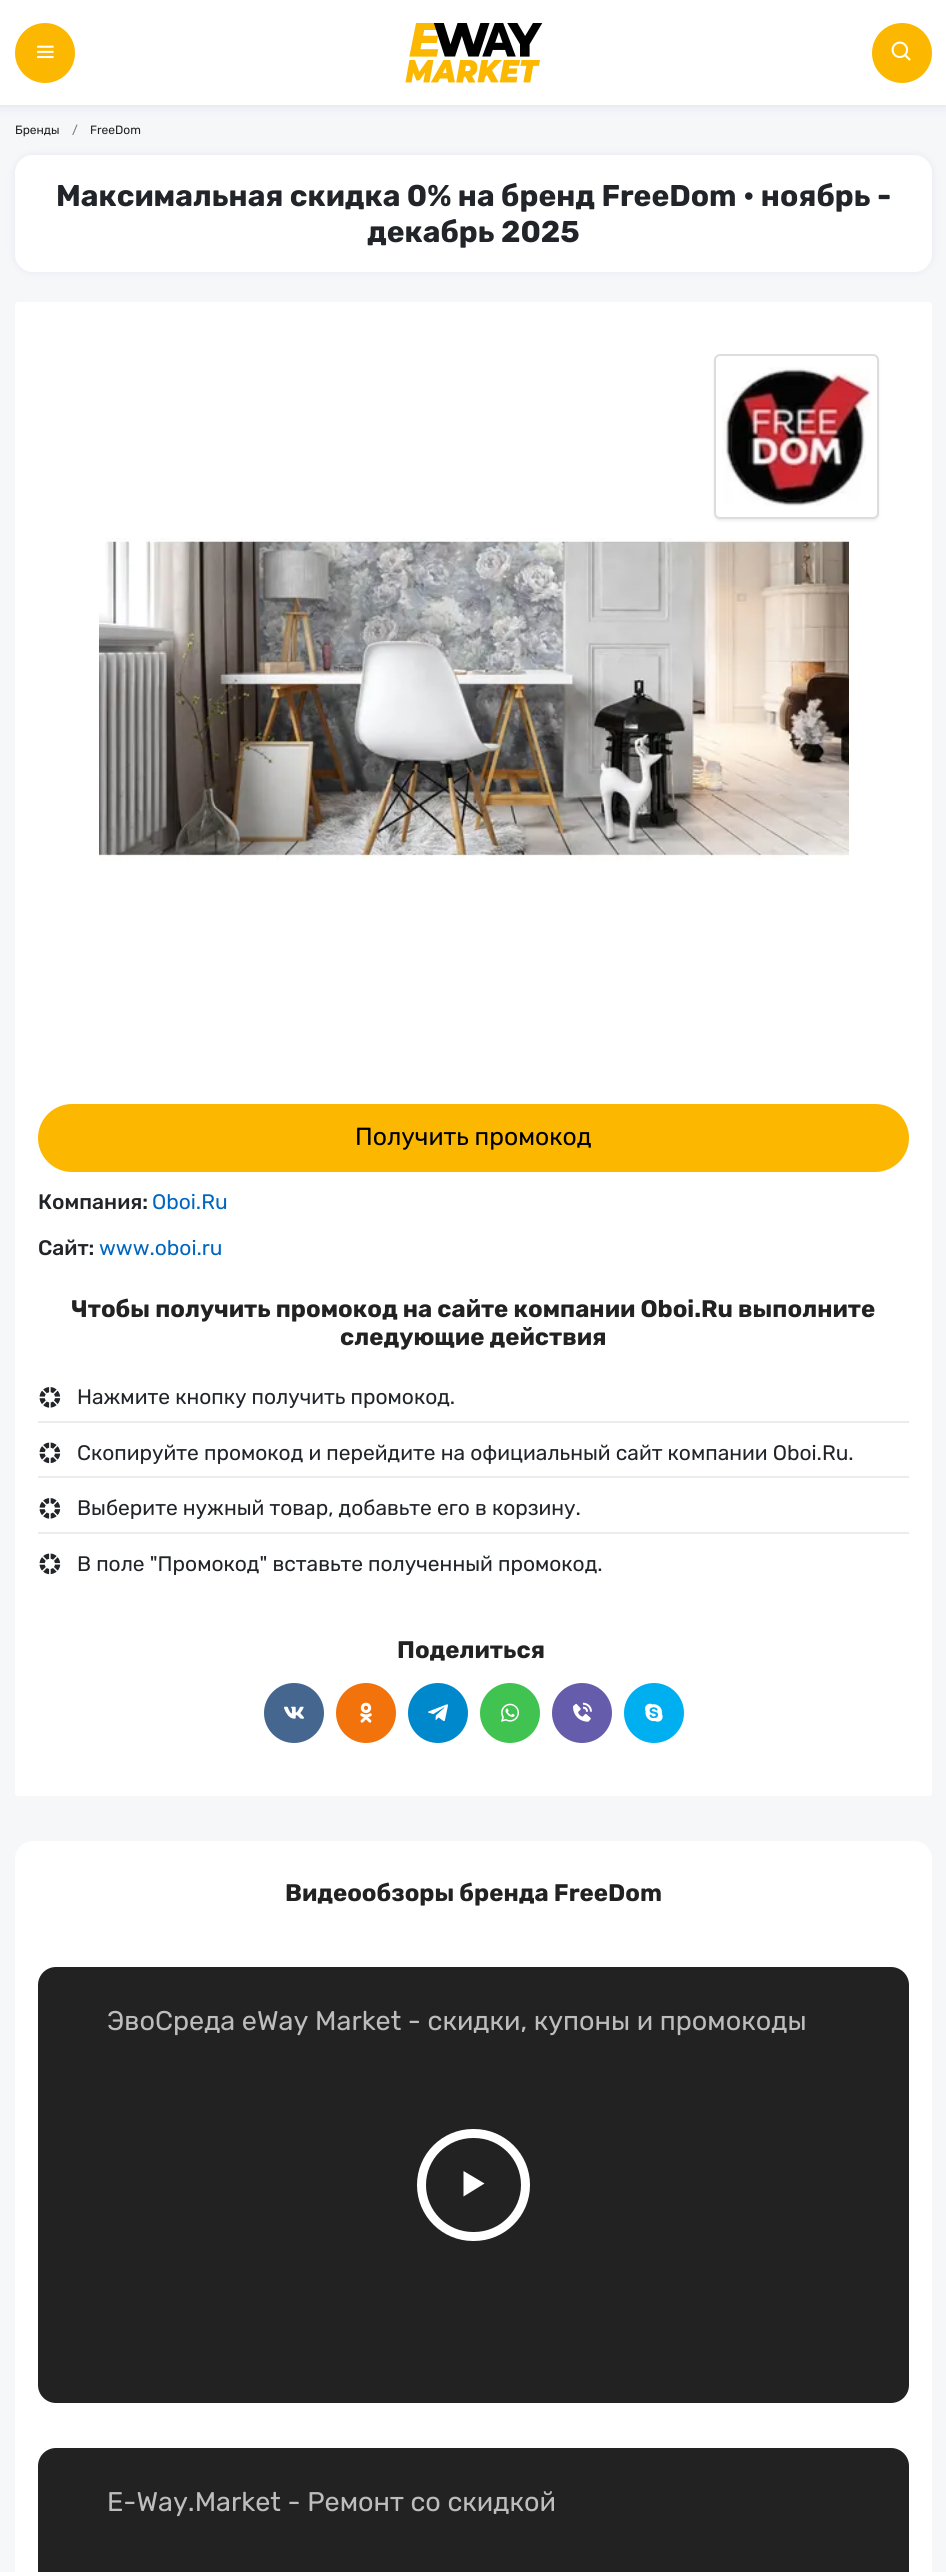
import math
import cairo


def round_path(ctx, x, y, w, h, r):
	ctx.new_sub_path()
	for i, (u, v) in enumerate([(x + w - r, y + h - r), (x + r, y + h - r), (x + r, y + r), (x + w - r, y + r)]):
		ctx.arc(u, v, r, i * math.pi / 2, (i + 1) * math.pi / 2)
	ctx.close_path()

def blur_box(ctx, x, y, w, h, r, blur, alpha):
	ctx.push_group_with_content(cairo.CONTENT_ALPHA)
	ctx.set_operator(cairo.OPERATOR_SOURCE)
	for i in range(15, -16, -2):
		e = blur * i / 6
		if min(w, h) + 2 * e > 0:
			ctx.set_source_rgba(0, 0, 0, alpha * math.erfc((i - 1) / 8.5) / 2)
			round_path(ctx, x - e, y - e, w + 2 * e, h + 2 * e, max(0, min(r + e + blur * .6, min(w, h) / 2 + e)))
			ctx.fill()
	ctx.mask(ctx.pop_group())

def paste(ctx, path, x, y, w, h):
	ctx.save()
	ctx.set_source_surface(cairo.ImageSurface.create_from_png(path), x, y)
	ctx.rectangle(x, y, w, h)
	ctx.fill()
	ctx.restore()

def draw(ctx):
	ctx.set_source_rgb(0.961, 0.965, 0.976)
	ctx.paint()
	ctx.set_source_rgb(0.824, 0.851, 0.929)
	blur_box(ctx, 0, 5, 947, 106, 0, 4, 0.3)
	ctx.set_source_rgb(1, 1, 1)
	ctx.rectangle(0, 0, 946, 105)
	ctx.fill()
	ctx.set_source_rgb(0.922, 0.922, 0.922)
	ctx.rectangle(0, 105, 946, 2)
	ctx.fill()
	ctx.set_source_rgb(0.988, 0.718, 0)
	ctx.arc(45, 53, 30, 0, 2 * math.pi)
	ctx.fill()
	paste(ctx, 'media/1.png', 37, 45, 17, 14)
	paste(ctx, 'media/2.png', 405, 23, 138, 60)
	ctx.arc(902, 53, 30, 0, 2 * math.pi)
	ctx.fill()
	paste(ctx, 'media/3.png', 891, 41, 20, 20)
	ctx.select_font_face('Rubik')
	ctx.set_font_size(12)
	ctx.set_source_rgb(0.133, 0.133, 0.133)
	ctx.move_to(15, 134)
	ctx.show_text('Бренды')
	ctx.set_source_rgb(0.424, 0.459, 0.49)
	ctx.move_to(72, 134)
	ctx.show_text('/')
	ctx.set_source_rgb(0.133, 0.133, 0.133)
	ctx.move_to(90, 134)
	ctx.show_text('FreeDom')
	ctx.set_source_rgb(0.608, 0.651, 0.784)
	blur_box(ctx, 15, 155, 917, 117, 18, 4, 0.2)
	ctx.set_source_rgb(1, 1, 1)
	round_path(ctx, 15, 155, 917, 117, 18)
	ctx.fill()
	ctx.select_font_face('Rubik', cairo.FONT_SLANT_NORMAL, cairo.FONT_WEIGHT_BOLD)
	ctx.set_font_size(30)
	ctx.set_source_rgb(0.129, 0.145, 0.161)
	ctx.move_to(56, 206)
	ctx.show_text('Максимальная скидка 0% на бренд FreeDom • ноябрь -')
	ctx.move_to(367, 242)
	ctx.show_text('декабрь 2025')
	ctx.set_source_rgb(1, 1, 1)
	round_path(ctx, 15, 302, 917, 1494, 3)
	ctx.fill()
	ctx.set_source_rgb(0, 0, 0)
	blur_box(ctx, 714, 356, 165, 165, 6, 1.5, 0.07)
	ctx.set_source_rgb(1, 1, 1)
	round_path(ctx, 715, 355, 163, 163, 5)
	ctx.fill_preserve()
	ctx.set_source_rgb(0.867, 0.867, 0.867)
	ctx.stroke()
	paste(ctx, 'media/4.png', 722, 367, 149, 139)
	paste(ctx, 'media/5.png', 99, 538, 750, 323)
	ctx.set_source_rgb(0.988, 0.718, 0)
	round_path(ctx, 39.5, 1105.5, 868, 65, 32.5)
	ctx.fill_preserve()
	ctx.set_line_width(3)
	ctx.stroke()
	ctx.select_font_face('Rubik')
	ctx.set_font_size(24.75)
	ctx.set_source_rgb(0, 0, 0)
	ctx.move_to(355, 1145)
	ctx.show_text('Получить промокод')
	ctx.select_font_face('Rubik Medium')
	ctx.set_font_size(21)
	ctx.set_source_rgb(0.129, 0.145, 0.161)
	ctx.move_to(38, 1209)
	ctx.show_text('Компания:')
	ctx.select_font_face('Rubik')
	ctx.set_source_rgb(0, 0.4, 0.753)
	ctx.move_to(152, 1209)
	ctx.show_text('Oboi.Ru')
	ctx.select_font_face('Rubik Medium')
	ctx.set_source_rgb(0.129, 0.145, 0.161)
	ctx.move_to(38, 1255)
	ctx.show_text('Сайт:')
	ctx.select_font_face('Rubik')
	ctx.set_source_rgb(0, 0.4, 0.753)
	ctx.move_to(99, 1255)
	ctx.show_text('www.oboi.ru')
	ctx.select_font_face('Rubik', cairo.FONT_SLANT_NORMAL, cairo.FONT_WEIGHT_BOLD)
	ctx.set_font_size(24)
	ctx.set_source_rgb(0.133, 0.133, 0.133)
	ctx.move_to(71, 1317)
	ctx.show_text('Чтобы получить промокод на сайте компании Oboi.Ru выполните')
	ctx.move_to(340, 1345)
	ctx.show_text('следующие действия')
	ctx.set_source_rgb(0.922, 0.922, 0.922)
	ctx.rectangle(38, 1421, 871, 2)
	ctx.fill()
	paste(ctx, 'media/6.png', 39, 1387, 22, 21)
	ctx.select_font_face('Rubik')
	ctx.set_font_size(21)
	ctx.set_source_rgb(0.129, 0.145, 0.161)
	ctx.move_to(77, 1404)
	ctx.show_text('Нажмите кнопку получить промокод.')
	ctx.set_source_rgb(0.922, 0.922, 0.922)
	ctx.rectangle(38, 1476, 871, 2)
	ctx.fill()
	paste(ctx, 'media/7.png', 39, 1442, 22, 22)
	ctx.set_source_rgb(0.129, 0.145, 0.161)
	ctx.move_to(77, 1460)
	ctx.show_text('Скопируйте промокод и перейдите на официальный сайт компании Oboi.Ru.')
	ctx.set_source_rgb(0.922, 0.922, 0.922)
	ctx.rectangle(38, 1532, 871, 2)
	ctx.fill()
	paste(ctx, 'media/6.png', 39, 1498, 22, 21)
	ctx.set_source_rgb(0.129, 0.145, 0.161)
	ctx.move_to(77, 1515)
	ctx.show_text('Выберите нужный товар, добавьте его в корзину.')
	paste(ctx, 'media/7.png', 39, 1553, 22, 22)
	ctx.move_to(77, 1571)
	ctx.show_text('В поле "Промокод" вставьте полученный промокод.')
	ctx.select_font_face('Rubik', cairo.FONT_SLANT_NORMAL, cairo.FONT_WEIGHT_BOLD)
	ctx.set_font_size(24)
	ctx.set_source_rgb(0.133, 0.133, 0.133)
	ctx.move_to(397, 1658)
	ctx.show_text('Поделиться')
	ctx.set_source_rgb(0.271, 0.4, 0.557)
	ctx.new_path()
	ctx.arc(294, 1713, 30, 0, 2 * math.pi)
	ctx.fill()
	paste(ctx, 'media/8.png', 284, 1706, 20, 13)
	ctx.set_source_rgb(0.949, 0.447, 0.047)
	ctx.arc(366, 1713, 30, 0, 2 * math.pi)
	ctx.fill()
	paste(ctx, 'media/9.png', 360, 1702, 12, 21)
	ctx.set_source_rgb(0, 0.533, 0.8)
	ctx.arc(438, 1713, 30, 0, 2 * math.pi)
	ctx.fill()
	paste(ctx, 'media/10.png', 428, 1704, 20, 17)
	ctx.set_source_rgb(0.251, 0.765, 0.318)
	ctx.arc(510, 1713, 30, 0, 2 * math.pi)
	ctx.fill()
	paste(ctx, 'media/11.png', 501, 1703, 18, 19)
	ctx.set_source_rgb(0.4, 0.361, 0.675)
	ctx.arc(582, 1713, 30, 0, 2 * math.pi)
	ctx.fill()
	paste(ctx, 'media/12.png', 573, 1702, 19, 20)
	ctx.set_source_rgb(0, 0.686, 0.941)
	ctx.arc(654, 1713, 30, 0, 2 * math.pi)
	ctx.fill()
	paste(ctx, 'media/13.png', 645, 1703, 18, 19)
	ctx.set_source_rgb(1, 1, 1)
	round_path(ctx, 15, 1841, 917, 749, 18)
	ctx.fill()
	ctx.set_source_rgb(0.133, 0.133, 0.133)
	ctx.move_to(285, 1901)
	ctx.show_text('Видеообзоры бренда FreeDom')
	round_path(ctx, 38, 1967, 871, 436, 18)
	ctx.fill()
	ctx.select_font_face('Rubik')
	ctx.set_font_size(27)
	ctx.set_source_rgb(0.741, 0.741, 0.741)
	ctx.move_to(107, 2030)
	ctx.show_text('ЭвоСреда eWay Market - скидки, купоны и промокоды')
	round_path(ctx, 421.5, 2133.5, 104, 103, 51.5)
	ctx.set_source_rgb(1, 1, 1)
	ctx.set_line_width(9)
	ctx.stroke()
	ctx.new_path()
	ctx.move_to(463.5, 2171)
	ctx.line_to(463.5, 2196.5)
	ctx.line_to(484.5, 2183.5)
	ctx.close_path()
	ctx.fill()
	ctx.set_source_rgb(0.133, 0.133, 0.133)
	round_path(ctx, 38, 2448, 871, 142, 18)
	ctx.fill()
	ctx.set_source_rgb(0.741, 0.741, 0.741)
	ctx.move_to(107, 2511)
	ctx.show_text('E-Way.Market - Ремонт со скидкой')


surface = cairo.ImageSurface(cairo.FORMAT_RGB24, 946, 2572)
ctx = cairo.Context(surface)
options = cairo.FontOptions()
options.set_hint_metrics(cairo.HINT_METRICS_OFF)
options.set_hint_style(cairo.HINT_STYLE_NONE)
ctx.set_font_options(options)
ctx.set_miter_limit(4)
draw(ctx)
surface.write_to_png('image.png')
